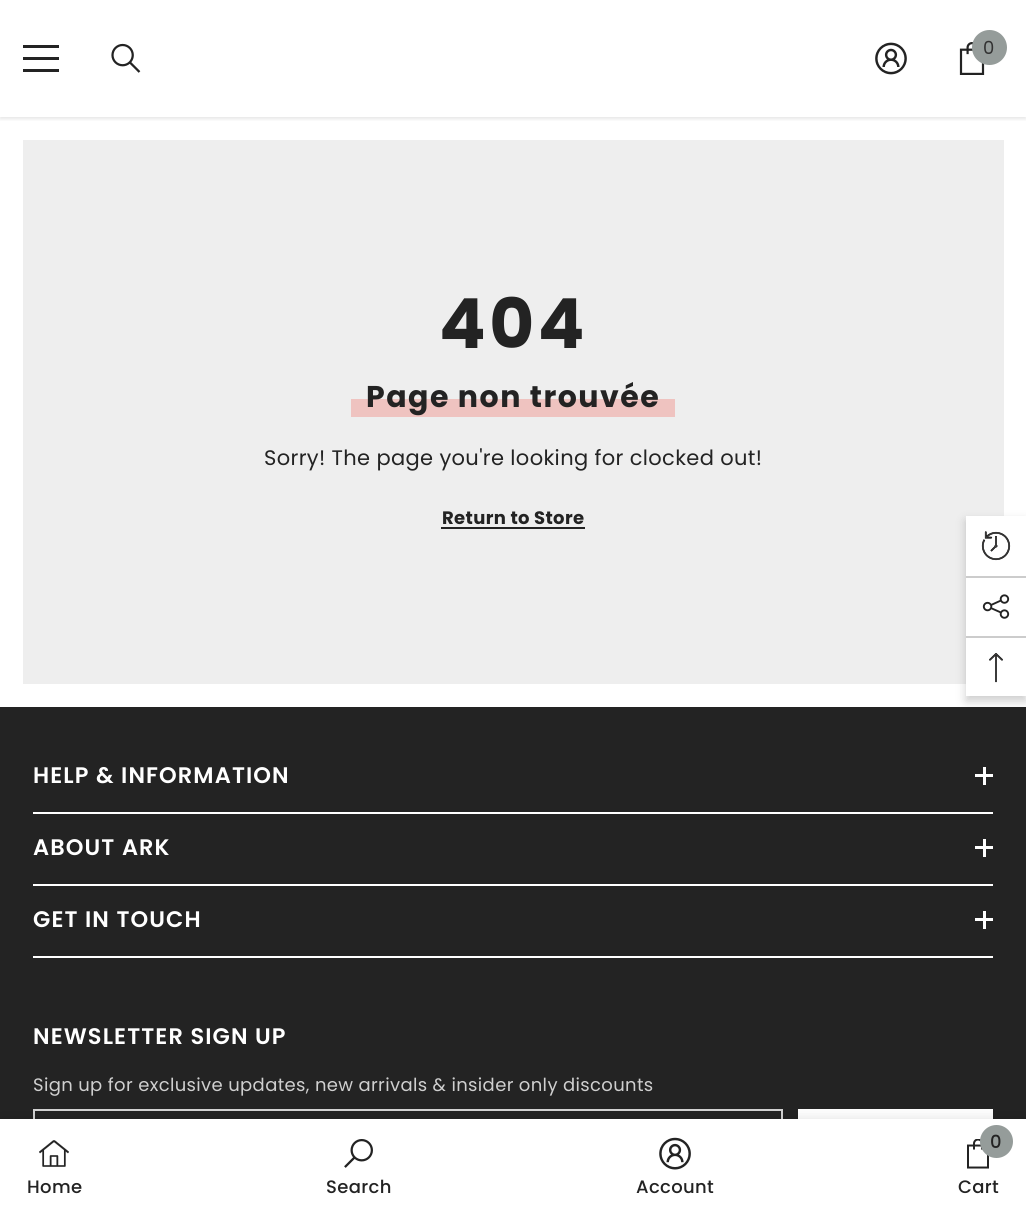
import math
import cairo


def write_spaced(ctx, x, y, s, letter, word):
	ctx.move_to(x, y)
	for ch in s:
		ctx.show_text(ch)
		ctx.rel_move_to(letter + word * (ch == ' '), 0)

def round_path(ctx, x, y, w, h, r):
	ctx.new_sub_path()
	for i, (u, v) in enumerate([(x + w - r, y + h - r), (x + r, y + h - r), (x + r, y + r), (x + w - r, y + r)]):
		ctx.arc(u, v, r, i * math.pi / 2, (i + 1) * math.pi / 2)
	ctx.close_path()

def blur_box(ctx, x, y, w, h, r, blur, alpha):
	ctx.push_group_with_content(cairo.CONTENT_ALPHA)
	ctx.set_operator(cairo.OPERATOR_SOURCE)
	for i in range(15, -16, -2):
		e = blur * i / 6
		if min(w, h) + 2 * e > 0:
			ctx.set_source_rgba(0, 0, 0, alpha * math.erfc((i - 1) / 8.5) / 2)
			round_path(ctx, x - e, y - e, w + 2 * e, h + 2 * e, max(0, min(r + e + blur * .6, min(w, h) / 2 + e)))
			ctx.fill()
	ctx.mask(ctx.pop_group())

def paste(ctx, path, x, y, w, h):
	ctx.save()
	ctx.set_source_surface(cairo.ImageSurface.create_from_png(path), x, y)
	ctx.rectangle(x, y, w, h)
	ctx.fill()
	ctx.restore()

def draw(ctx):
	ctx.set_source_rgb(1, 1, 1)
	ctx.paint()
	ctx.save()
	ctx.rectangle(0, 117, 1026, 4)
	ctx.clip()
	ctx.set_source_rgb(0, 0, 0)
	blur_box(ctx, 0, 2, 1026, 117, 0, 2, 0.1)
	ctx.restore()
	ctx.set_source_rgb(0.137, 0.137, 0.137)
	ctx.rectangle(23, 57, 36, 3)
	ctx.rectangle(23, 45, 36, 3)
	ctx.rectangle(23, 69, 36, 3)
	ctx.fill()
	paste(ctx, 'media/1.png', 111, 43, 30, 30)
	paste(ctx, 'media/2.png', 875, 42, 32, 33)
	paste(ctx, 'media/3.png', 959, 42, 26, 33)
	ctx.set_source_rgb(0.584, 0.612, 0.604)
	ctx.arc(989.5, 47.5, 17.5, 0, 2 * math.pi)
	ctx.fill()
	ctx.select_font_face('Poppins')
	ctx.set_font_size(18)
	ctx.set_source_rgb(0.196, 0.196, 0.196)
	write_spaced(ctx, 983, 54, '0', 0.35, 0)
	ctx.set_source_rgb(0.933, 0.933, 0.933)
	ctx.rectangle(23, 140, 981, 544)
	ctx.fill()
	ctx.select_font_face('Poppins', cairo.FONT_SLANT_NORMAL, cairo.FONT_WEIGHT_BOLD)
	ctx.set_font_size(69)
	ctx.set_source_rgb(0.137, 0.137, 0.137)
	write_spaced(ctx, 439, 348, '404', 3.5, 0)
	ctx.set_source_rgb(0.937, 0.765, 0.753)
	ctx.rectangle(351, 399, 324, 18)
	ctx.fill()
	ctx.set_font_size(30)
	ctx.set_source_rgb(0.137, 0.137, 0.137)
	write_spaced(ctx, 366, 407, 'Page non trouvée', 1.5, 0)
	ctx.select_font_face('Poppins')
	ctx.set_font_size(21)
	write_spaced(ctx, 264, 465, 'Sorry! The page you\'re looking for clocked out!', 0.35, 0)
	ctx.select_font_face('Poppins', cairo.FONT_SLANT_NORMAL, cairo.FONT_WEIGHT_BOLD)
	ctx.set_font_size(18)
	write_spaced(ctx, 442, 524, 'Return to Store', 0.35, 0)
	ctx.rectangle(441, 527, 144, 2)
	ctx.rectangle(0, 707, 1026, 412)
	ctx.fill()
	ctx.set_source_rgb(1, 1, 1)
	ctx.rectangle(33, 812, 960, 2)
	ctx.fill()
	ctx.select_font_face('Poppins SemiBold')
	ctx.set_font_size(22.5)
	write_spaced(ctx, 33, 783, 'HELP & INFORMATION', 1.1, 0)
	ctx.rectangle(983, 767, 3, 18)
	ctx.rectangle(975, 774, 18, 3)
	ctx.rectangle(33, 884, 960, 2)
	ctx.fill()
	write_spaced(ctx, 33, 855, 'ABOUT ARK', 1.1, 0)
	ctx.rectangle(983, 839, 3, 18)
	ctx.rectangle(975, 846, 18, 3)
	ctx.rectangle(33, 956, 960, 2)
	ctx.fill()
	write_spaced(ctx, 33, 927, 'GET IN TOUCH', 1.1, 0)
	ctx.rectangle(983, 911, 3, 18)
	ctx.fill()
	ctx.rectangle(975, 918, 18, 3)
	ctx.fill()
	write_spaced(ctx, 33, 1044, 'NEWSLETTER SIGN UP', 1.1, 0)
	ctx.select_font_face('Poppins')
	ctx.set_font_size(18)
	ctx.set_source_rgb(0.812, 0.812, 0.812)
	write_spaced(ctx, 33, 1091, 'Sign up for exclusive updates, new arrivals & insider only discounts', 0.35, 0)
	ctx.rectangle(34, 1110, 748, 64)
	ctx.set_source_rgb(0.827, 0.827, 0.827)
	ctx.stroke()
	ctx.set_source_rgb(1, 1, 1)
	ctx.rectangle(798, 1109, 195, 10)
	ctx.fill()
	ctx.set_source_rgb(0, 0, 0)
	blur_box(ctx, 0, 1119, 1026, 93, 0, 7, 0.12)
	ctx.set_source_rgb(1, 1, 1)
	ctx.rectangle(0, 1119, 1026, 93)
	ctx.fill()
	paste(ctx, 'media/4.png', 39, 1140, 30, 27)
	ctx.select_font_face('Poppins Medium')
	ctx.set_source_rgb(0.137, 0.137, 0.137)
	write_spaced(ctx, 27, 1193, 'Home', 0.35, 0)
	paste(ctx, 'media/5.png', 344, 1139, 29, 29)
	write_spaced(ctx, 326, 1193, 'Search', 0.35, 0)
	paste(ctx, 'media/6.png', 659, 1137, 32, 33)
	write_spaced(ctx, 636, 1193, 'Account', 0.35, 0)
	paste(ctx, 'media/7.png', 967, 1139, 22, 30)
	ctx.set_source_rgb(0.584, 0.612, 0.604)
	ctx.arc(996.5, 1141.5, 16.5, 0, 2 * math.pi)
	ctx.fill()
	ctx.set_source_rgb(0.137, 0.137, 0.137)
	write_spaced(ctx, 990, 1148, '0', 0.35, 0)
	write_spaced(ctx, 958, 1193, 'Cart', 0.35, 0)
	ctx.set_source_rgb(0, 0, 0)
	blur_box(ctx, 966, 521, 60, 180, 0, 5, 0.2)
	ctx.set_source_rgb(1, 1, 1)
	ctx.rectangle(966, 516, 60, 180)
	ctx.fill()
	paste(ctx, 'media/8.png', 981, 531, 30, 30)
	ctx.set_source_rgb(0.8, 0.8, 0.8)
	ctx.rectangle(966, 576, 60, 2)
	ctx.fill()
	paste(ctx, 'media/9.png', 982, 594, 28, 25)
	ctx.rectangle(966, 636, 60, 2)
	ctx.fill()
	paste(ctx, 'media/10.png', 989, 653, 14, 30)


surface = cairo.ImageSurface(cairo.FORMAT_RGB24, 1026, 1212)
ctx = cairo.Context(surface)
options = cairo.FontOptions()
options.set_hint_metrics(cairo.HINT_METRICS_OFF)
options.set_hint_style(cairo.HINT_STYLE_NONE)
ctx.set_font_options(options)
ctx.set_miter_limit(4)
draw(ctx)
surface.write_to_png('image.png')
